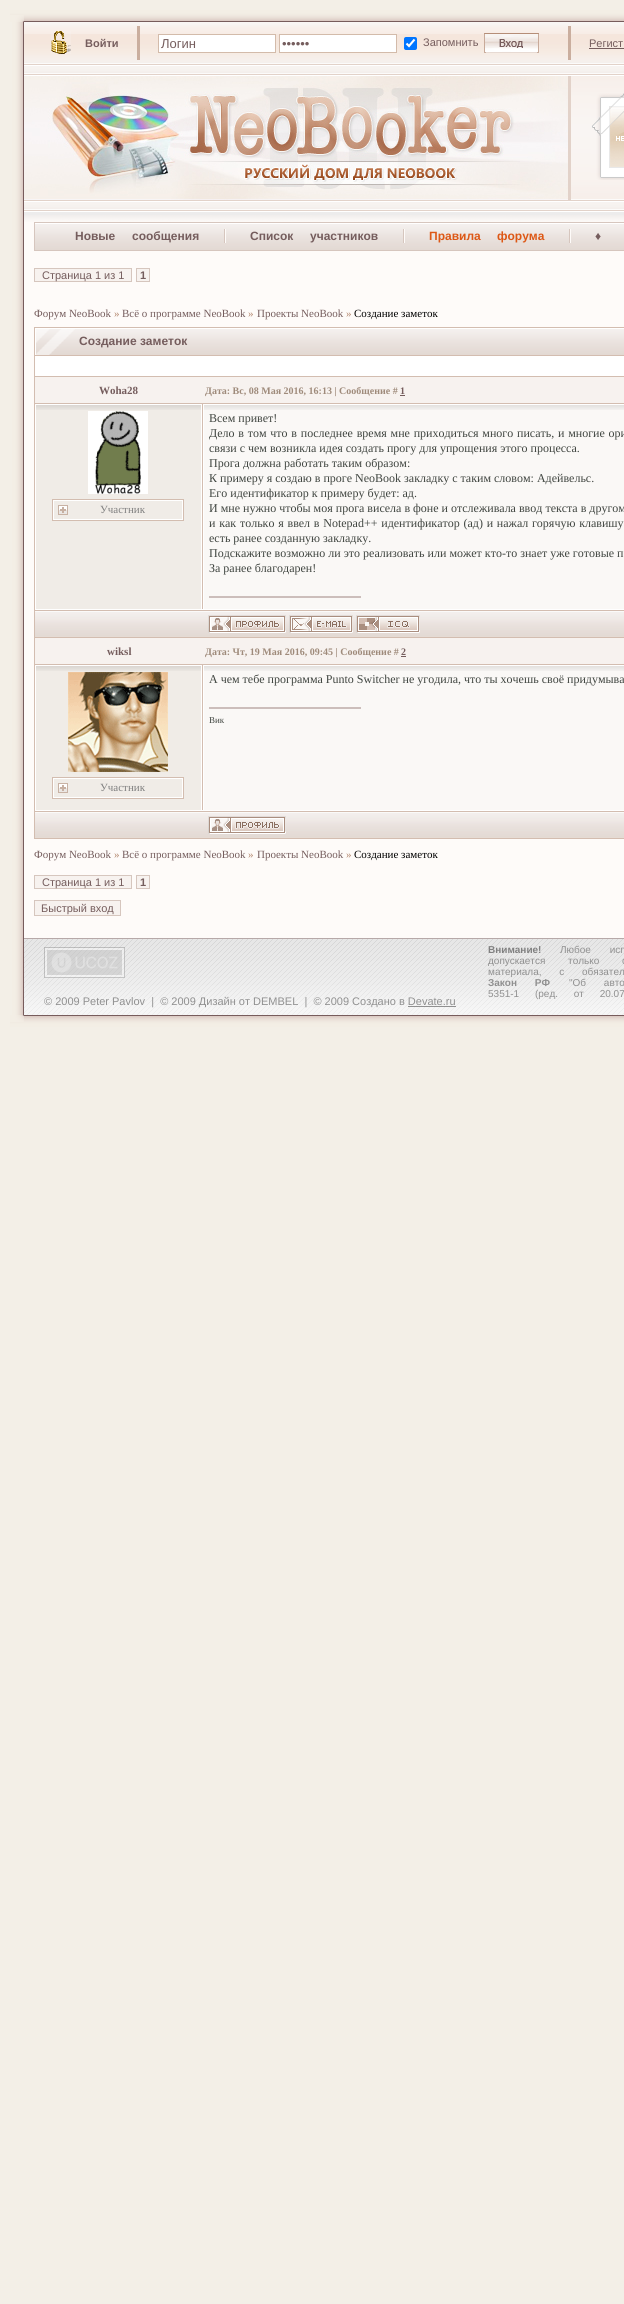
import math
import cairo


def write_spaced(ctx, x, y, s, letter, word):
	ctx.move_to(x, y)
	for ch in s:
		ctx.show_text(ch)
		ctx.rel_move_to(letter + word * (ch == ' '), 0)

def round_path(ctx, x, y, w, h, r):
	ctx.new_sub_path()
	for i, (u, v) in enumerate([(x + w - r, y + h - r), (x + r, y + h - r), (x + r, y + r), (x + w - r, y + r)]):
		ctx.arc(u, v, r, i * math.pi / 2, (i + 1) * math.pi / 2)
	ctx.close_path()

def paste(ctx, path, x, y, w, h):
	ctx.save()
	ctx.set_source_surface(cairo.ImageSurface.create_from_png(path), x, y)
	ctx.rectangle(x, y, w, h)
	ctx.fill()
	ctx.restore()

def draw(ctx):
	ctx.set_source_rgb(0.953, 0.937, 0.906)
	ctx.paint()
	paste(ctx, 'media/1.png', 10, 10, 614, 12)
	paste(ctx, 'media/2.png', 10, 15, 14, 7)
	ctx.set_source_rgb(0.996, 0.984, 0.976)
	ctx.rectangle(24, 222, 600, 716)
	ctx.fill()
	paste(ctx, 'media/3.png', 10, 22, 14, 993)
	paste(ctx, 'media/4.png', 24, 22, 600, 42)
	paste(ctx, 'media/5.png', 51, 31, 20, 23)
	ctx.select_font_face('Liberation Sans', cairo.FONT_SLANT_NORMAL, cairo.FONT_WEIGHT_BOLD)
	ctx.set_font_size(11)
	ctx.set_source_rgb(0.459, 0.365, 0.365)
	ctx.move_to(85, 47)
	ctx.show_text('Войти')
	ctx.set_source_rgb(0.792, 0.682, 0.62)
	ctx.rectangle(137, 26, 3, 34)
	ctx.fill()
	ctx.set_source_rgb(1, 1, 1)
	ctx.rectangle(158.5, 34.5, 117, 18)
	ctx.fill_preserve()
	ctx.set_source_rgb(0.827, 0.733, 0.667)
	ctx.set_line_width(1)
	ctx.stroke()
	ctx.select_font_face('Liberation Sans')
	ctx.set_font_size(13)
	ctx.set_source_rgb(0.459, 0.365, 0.365)
	ctx.move_to(161, 48)
	ctx.show_text('Логин')
	ctx.set_source_rgb(1, 1, 1)
	ctx.rectangle(279.5, 34.5, 117, 18)
	ctx.fill_preserve()
	ctx.set_source_rgb(0.827, 0.733, 0.667)
	ctx.stroke()
	ctx.set_source_rgb(0.459, 0.365, 0.365)
	ctx.move_to(282, 48)
	ctx.show_text('••••••')
	ctx.set_source_rgb(0, 0.459, 1)
	round_path(ctx, 404, 37, 13, 13, 2)
	ctx.fill()
	ctx.new_path()
	ctx.move_to(406.5, 43.5)
	ctx.line_to(409, 46)
	ctx.line_to(414.5, 39.5)
	ctx.set_source_rgb(1, 1, 1)
	ctx.set_line_width(2.1)
	ctx.stroke()
	ctx.set_font_size(11)
	ctx.set_source_rgb(0.459, 0.365, 0.365)
	ctx.move_to(423, 46)
	ctx.show_text('Запомнить')
	paste(ctx, 'media/6.png', 484, 33, 55, 20)
	ctx.set_source_rgb(0.792, 0.682, 0.62)
	ctx.rectangle(568, 26, 3, 34)
	ctx.fill()
	ctx.set_source_rgb(0.459, 0.365, 0.365)
	ctx.move_to(589, 47)
	ctx.show_text('Регист')
	ctx.rectangle(589, 48, 35, 1)
	ctx.fill()
	paste(ctx, 'media/7.png', 24, 64, 600, 12)
	paste(ctx, 'media/8.png', 571, 76, 53, 124)
	paste(ctx, 'media/9.png', 24, 76, 544, 124)
	ctx.set_source_rgb(0.886, 0.824, 0.788)
	ctx.rectangle(568, 76, 3, 124)
	ctx.fill()
	paste(ctx, 'media/10.png', 591, 93, 33, 87)
	paste(ctx, 'media/7.png', 24, 200, 600, 12)
	ctx.set_source_rgb(0.929, 0.925, 0.925)
	ctx.rectangle(24, 212, 600, 3)
	ctx.fill()
	paste(ctx, 'media/11.png', 24, 215, 600, 7)
	paste(ctx, 'media/12.png', 35, 223, 589, 27)
	ctx.rectangle(34.5, 222.5, 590, 28)
	ctx.set_source_rgb(0.839, 0.776, 0.745)
	ctx.set_line_width(1)
	ctx.stroke()
	ctx.select_font_face('Liberation Sans', cairo.FONT_SLANT_NORMAL, cairo.FONT_WEIGHT_BOLD)
	ctx.set_font_size(12)
	ctx.set_source_rgb(0.459, 0.365, 0.365)
	ctx.move_to(75, 240)
	ctx.show_text('Новые')
	ctx.move_to(132, 240)
	ctx.show_text('сообщения')
	paste(ctx, 'media/13.png', 224, 229, 2, 14)
	ctx.move_to(250, 240)
	ctx.show_text('Список')
	ctx.move_to(310, 240)
	ctx.show_text('участников')
	paste(ctx, 'media/13.png', 403, 229, 2, 14)
	ctx.set_source_rgb(0.867, 0.345, 0.086)
	ctx.move_to(429, 240)
	ctx.show_text('Правила')
	ctx.move_to(497, 240)
	ctx.show_text('форума')
	paste(ctx, 'media/13.png', 569, 229, 2, 14)
	ctx.set_source_rgb(0.459, 0.365, 0.365)
	ctx.move_to(595, 240)
	ctx.show_text('♦')
	ctx.set_source_rgb(0.965, 0.949, 0.937)
	ctx.rectangle(34.5, 268.5, 97, 13)
	ctx.fill_preserve()
	ctx.set_source_rgb(0.839, 0.776, 0.745)
	ctx.stroke()
	ctx.select_font_face('Liberation Sans')
	ctx.set_font_size(11)
	ctx.set_source_rgb(0.459, 0.365, 0.365)
	ctx.move_to(42, 279)
	ctx.show_text('Страница 1 из 1')
	ctx.set_source_rgb(0.965, 0.949, 0.937)
	ctx.rectangle(136.5, 268.5, 13, 13)
	ctx.fill_preserve()
	ctx.set_source_rgb(0.839, 0.776, 0.745)
	ctx.stroke()
	ctx.select_font_face('Liberation Sans', cairo.FONT_SLANT_NORMAL, cairo.FONT_WEIGHT_BOLD)
	ctx.set_source_rgb(0.459, 0.365, 0.365)
	ctx.move_to(140, 279)
	ctx.show_text('1')
	ctx.select_font_face('Liberation Serif')
	ctx.move_to(34, 317)
	ctx.show_text('Форум NeoBook')
	ctx.set_source_rgb(0.698, 0.525, 0.427)
	ctx.move_to(114, 317)
	ctx.show_text('»')
	ctx.set_source_rgb(0.459, 0.365, 0.365)
	ctx.move_to(122, 317)
	ctx.show_text('Всё о программе NeoBook')
	ctx.set_source_rgb(0.698, 0.525, 0.427)
	ctx.move_to(248, 317)
	ctx.show_text('»')
	ctx.set_source_rgb(0.459, 0.365, 0.365)
	ctx.move_to(257, 317)
	ctx.show_text('Проекты NeoBook')
	ctx.set_source_rgb(0.698, 0.525, 0.427)
	ctx.move_to(346, 317)
	ctx.show_text('»')
	ctx.set_source_rgb(0, 0, 0)
	ctx.move_to(354, 317)
	ctx.show_text('Создание заметок')
	ctx.set_source_rgb(0.827, 0.741, 0.69)
	ctx.rectangle(34, 327, 590, 512)
	ctx.fill()
	paste(ctx, 'media/12.png', 35, 328, 589, 27)
	paste(ctx, 'media/14.png', 35, 329, 40, 26)
	ctx.select_font_face('Liberation Sans', cairo.FONT_SLANT_NORMAL, cairo.FONT_WEIGHT_BOLD)
	ctx.set_font_size(12)
	ctx.set_source_rgb(0.459, 0.365, 0.365)
	ctx.move_to(79, 345)
	ctx.show_text('Создание заметок')
	ctx.set_source_rgb(1, 1, 1)
	ctx.rectangle(35, 356, 589, 20)
	ctx.fill()
	ctx.set_source_rgb(0.965, 0.949, 0.937)
	ctx.rectangle(35, 377, 589, 26)
	ctx.fill()
	ctx.select_font_face('Liberation Serif', cairo.FONT_SLANT_NORMAL, cairo.FONT_WEIGHT_BOLD)
	ctx.set_font_size(11)
	ctx.set_source_rgb(0.459, 0.365, 0.365)
	ctx.move_to(99, 394)
	ctx.show_text('Woha28')
	ctx.set_font_size(10)
	ctx.set_source_rgb(0.624, 0.545, 0.482)
	ctx.move_to(205, 394)
	ctx.show_text('Дата: Вс, 08 Мая 2016, 16:13 | Сообщение #')
	ctx.set_source_rgb(0.459, 0.365, 0.365)
	ctx.move_to(400, 394)
	ctx.show_text('1')
	ctx.rectangle(400, 395, 5, 1)
	ctx.fill()
	ctx.set_source_rgb(0.941, 0.922, 0.906)
	ctx.rectangle(36, 405, 165, 204)
	ctx.fill()
	paste(ctx, 'media/15.png', 36, 405, 165, 5)
	ctx.set_source_rgb(1, 1, 1)
	ctx.rectangle(35, 404, 168, 1)
	ctx.fill()
	ctx.set_source_rgb(0.827, 0.741, 0.69)
	ctx.rectangle(202, 404, 1, 1)
	ctx.fill()
	ctx.set_source_rgb(1, 1, 1)
	ctx.rectangle(35, 609, 168, 1)
	ctx.rectangle(35, 404, 1, 206)
	ctx.rectangle(201, 405, 1, 205)
	ctx.rectangle(88, 411, 60, 83)
	ctx.fill()
	paste(ctx, 'media/16.png', 95, 411, 46, 83)
	paste(ctx, 'media/17.png', 58, 505, 10, 10)
	ctx.rectangle(52.5, 499.5, 131, 21)
	ctx.set_source_rgb(0.827, 0.741, 0.69)
	ctx.stroke()
	ctx.rectangle(53.5, 500.5, 129, 19)
	ctx.set_source_rgb(1, 1, 1)
	ctx.stroke()
	ctx.select_font_face('Liberation Serif')
	ctx.set_font_size(11)
	ctx.set_source_rgb(0.502, 0.502, 0.502)
	ctx.move_to(100, 513)
	ctx.show_text('Участник')
	ctx.set_source_rgb(0.98, 0.969, 0.961)
	ctx.rectangle(204, 405, 420, 204)
	ctx.fill()
	paste(ctx, 'media/18.png', 204, 405, 420, 5)
	ctx.rectangle(203.5, 404.5, 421, 205)
	ctx.set_source_rgb(1, 1, 1)
	ctx.stroke()
	ctx.set_font_size(12)
	ctx.set_source_rgb(0.251, 0.271, 0.251)
	ctx.move_to(209, 422)
	ctx.show_text('Всем привет!')
	write_spaced(ctx, 209, 437, 'Дело в том что в последнее время мне приходиться много писать, и многие ори', 0, 0.75)
	for x, y, s in [
		(209, 452, 'связи с чем возникла идея создать прогу для упрощения этого процесса.'),
		(209, 467, 'Прога должна работать таким образом:'),
		(209, 482, 'К примеру я создаю в проге NeoBook закладку с таким словом: Адейвельс.'),
		(209, 497, 'Его идентификатор к примеру будет: ад.'),
		(209, 512, 'И мне нужно чтобы моя прога висела в фоне и отслеживала ввод текста в другом'),
	]:
		ctx.move_to(x, y)
		ctx.show_text(s)
	write_spaced(ctx, 209, 527, 'и как только я ввел в Notepad++ идентификатор (ад) и нажал горячую клавишу', 0, 0.75)
	for x, y, s in [
		(209, 542, 'есть ранее созданную закладку.'),
		(209, 557, 'Подскажите возможно ли это реализовать или может кто-то знает уже готовые п'),
		(209, 572, 'За ранее благодарен!'),
	]:
		ctx.move_to(x, y)
		ctx.show_text(s)
	ctx.set_source_rgb(0.8, 0.745, 0.733)
	ctx.rectangle(209, 596, 152, 2)
	ctx.fill()
	paste(ctx, 'media/19.png', 35, 611, 168, 26)
	paste(ctx, 'media/20.png', 203, 611, 421, 26)
	paste(ctx, 'media/21.png', 208, 615, 78, 18)
	paste(ctx, 'media/22.png', 289, 615, 64, 18)
	paste(ctx, 'media/23.png', 356, 615, 64, 18)
	ctx.set_source_rgb(0.965, 0.949, 0.937)
	ctx.rectangle(35, 638, 589, 26)
	ctx.fill()
	ctx.select_font_face('Liberation Serif', cairo.FONT_SLANT_NORMAL, cairo.FONT_WEIGHT_BOLD)
	ctx.set_font_size(11)
	ctx.set_source_rgb(0.459, 0.365, 0.365)
	ctx.move_to(107, 655)
	ctx.show_text('wiksl')
	ctx.set_font_size(10)
	ctx.set_source_rgb(0.624, 0.545, 0.482)
	ctx.move_to(205, 655)
	ctx.show_text('Дата: Чт, 19 Мая 2016, 09:45 | Сообщение #')
	ctx.set_source_rgb(0.459, 0.365, 0.365)
	ctx.move_to(401, 655)
	ctx.show_text('2')
	ctx.rectangle(401, 656, 5, 1)
	ctx.fill()
	ctx.set_source_rgb(0.98, 0.969, 0.961)
	ctx.rectangle(204, 666, 420, 144)
	ctx.fill()
	paste(ctx, 'media/18.png', 204, 666, 420, 5)
	ctx.rectangle(203.5, 665.5, 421, 145)
	ctx.set_source_rgb(1, 1, 1)
	ctx.stroke()
	ctx.select_font_face('Liberation Serif')
	ctx.set_font_size(12)
	ctx.set_source_rgb(0.251, 0.271, 0.251)
	ctx.move_to(209, 683)
	ctx.show_text('А чем тебе программа Punto Switсher не угодила, что ты хочешь своё придумыва')
	ctx.set_source_rgb(0.8, 0.745, 0.733)
	ctx.rectangle(209, 707, 152, 2)
	ctx.fill()
	ctx.set_font_size(9)
	ctx.set_source_rgb(0.251, 0.271, 0.251)
	ctx.move_to(209, 723)
	ctx.show_text('Вик')
	ctx.set_source_rgb(0.941, 0.922, 0.906)
	ctx.rectangle(36, 666, 165, 144)
	ctx.fill()
	paste(ctx, 'media/15.png', 36, 666, 165, 5)
	ctx.set_source_rgb(1, 1, 1)
	ctx.rectangle(35, 665, 168, 1)
	ctx.fill()
	ctx.set_source_rgb(0.827, 0.741, 0.69)
	ctx.rectangle(202, 665, 1, 1)
	ctx.fill()
	ctx.set_source_rgb(1, 1, 1)
	ctx.rectangle(35, 810, 168, 1)
	ctx.rectangle(35, 665, 1, 146)
	ctx.rectangle(201, 666, 1, 144)
	ctx.fill()
	paste(ctx, 'media/24.png', 68, 672, 100, 100)
	paste(ctx, 'media/17.png', 58, 783, 10, 10)
	ctx.rectangle(52.5, 777.5, 131, 21)
	ctx.set_source_rgb(0.827, 0.741, 0.69)
	ctx.stroke()
	ctx.rectangle(53.5, 778.5, 129, 19)
	ctx.set_source_rgb(1, 1, 1)
	ctx.stroke()
	ctx.set_font_size(11)
	ctx.set_source_rgb(0.502, 0.502, 0.502)
	ctx.move_to(100, 791)
	ctx.show_text('Участник')
	paste(ctx, 'media/19.png', 35, 812, 168, 26)
	paste(ctx, 'media/20.png', 203, 812, 421, 26)
	paste(ctx, 'media/21.png', 208, 816, 78, 18)
	ctx.set_source_rgb(0.459, 0.365, 0.365)
	ctx.move_to(34, 858)
	ctx.show_text('Форум NeoBook')
	ctx.set_source_rgb(0.698, 0.525, 0.427)
	ctx.move_to(114, 858)
	ctx.show_text('»')
	ctx.set_source_rgb(0.459, 0.365, 0.365)
	ctx.move_to(122, 858)
	ctx.show_text('Всё о программе NeoBook')
	ctx.set_source_rgb(0.698, 0.525, 0.427)
	ctx.move_to(248, 858)
	ctx.show_text('»')
	ctx.set_source_rgb(0.459, 0.365, 0.365)
	ctx.move_to(257, 858)
	ctx.show_text('Проекты NeoBook')
	ctx.set_source_rgb(0.698, 0.525, 0.427)
	ctx.move_to(346, 858)
	ctx.show_text('»')
	ctx.set_source_rgb(0, 0, 0)
	ctx.move_to(354, 858)
	ctx.show_text('Создание заметок')
	ctx.set_source_rgb(0.965, 0.949, 0.937)
	ctx.rectangle(34.5, 875.5, 97, 13)
	ctx.fill_preserve()
	ctx.set_source_rgb(0.839, 0.776, 0.745)
	ctx.stroke()
	ctx.select_font_face('Liberation Sans')
	ctx.set_source_rgb(0.459, 0.365, 0.365)
	ctx.move_to(42, 886)
	ctx.show_text('Страница 1 из 1')
	ctx.set_source_rgb(0.965, 0.949, 0.937)
	ctx.rectangle(136.5, 875.5, 13, 13)
	ctx.fill_preserve()
	ctx.set_source_rgb(0.839, 0.776, 0.745)
	ctx.stroke()
	ctx.select_font_face('Liberation Sans', cairo.FONT_SLANT_NORMAL, cairo.FONT_WEIGHT_BOLD)
	ctx.set_source_rgb(0.459, 0.365, 0.365)
	ctx.move_to(140, 886)
	ctx.show_text('1')
	ctx.set_source_rgb(0.965, 0.949, 0.937)
	ctx.rectangle(34.5, 900.5, 86, 15)
	ctx.fill_preserve()
	ctx.set_source_rgb(0.839, 0.776, 0.745)
	ctx.stroke()
	ctx.select_font_face('Liberation Sans')
	ctx.set_source_rgb(0.459, 0.365, 0.365)
	ctx.move_to(41, 912)
	ctx.show_text('Быстрый вход')
	paste(ctx, 'media/25.png', 24, 939, 600, 76)
	ctx.set_source_rgb(0.718, 0.663, 0.663)
	ctx.rectangle(24, 938, 600, 1)
	ctx.fill()
	paste(ctx, 'media/26.png', 44, 947, 81, 31)
	ctx.select_font_face('Liberation Sans', cairo.FONT_SLANT_NORMAL, cairo.FONT_WEIGHT_BOLD)
	ctx.set_font_size(10)
	ctx.set_source_rgb(0.502, 0.502, 0.502)
	ctx.move_to(488, 953)
	ctx.show_text('Внимание!')
	ctx.select_font_face('Liberation Sans')
	ctx.set_source_rgb(0.565, 0.565, 0.565)
	write_spaced(ctx, 560, 953, 'Любое исп', 0, 16)
	write_spaced(ctx, 488, 964, 'допускается только с', 0, 20)
	write_spaced(ctx, 488, 975, 'материала, с обязател', 0, 15)
	ctx.select_font_face('Liberation Sans', cairo.FONT_SLANT_NORMAL, cairo.FONT_WEIGHT_BOLD)
	write_spaced(ctx, 488, 986, 'Закон РФ', 0, 15)
	ctx.select_font_face('Liberation Sans')
	write_spaced(ctx, 569, 986, '"Об авто', 0, 15)
	write_spaced(ctx, 488, 997, '5351-1 (ред. от 20.07', 0, 13)
	ctx.set_font_size(11)
	ctx.move_to(44, 1005)
	ctx.show_text('© 2009 Peter Pavlov  |  © 2009 Дизайн от DEMBEL  |  © 2009 Создано в Devate.ru')
	ctx.rectangle(408, 1006, 48, 1)
	ctx.fill()
	paste(ctx, 'media/27.png', 10, 1015, 614, 12)
	paste(ctx, 'media/28.png', 10, 1015, 14, 7)


surface = cairo.ImageSurface(cairo.FORMAT_RGB24, 624, 2304)
ctx = cairo.Context(surface)
options = cairo.FontOptions()
options.set_hint_metrics(cairo.HINT_METRICS_OFF)
options.set_hint_style(cairo.HINT_STYLE_NONE)
ctx.set_font_options(options)
ctx.set_miter_limit(4)
draw(ctx)
surface.write_to_png('image.png')
